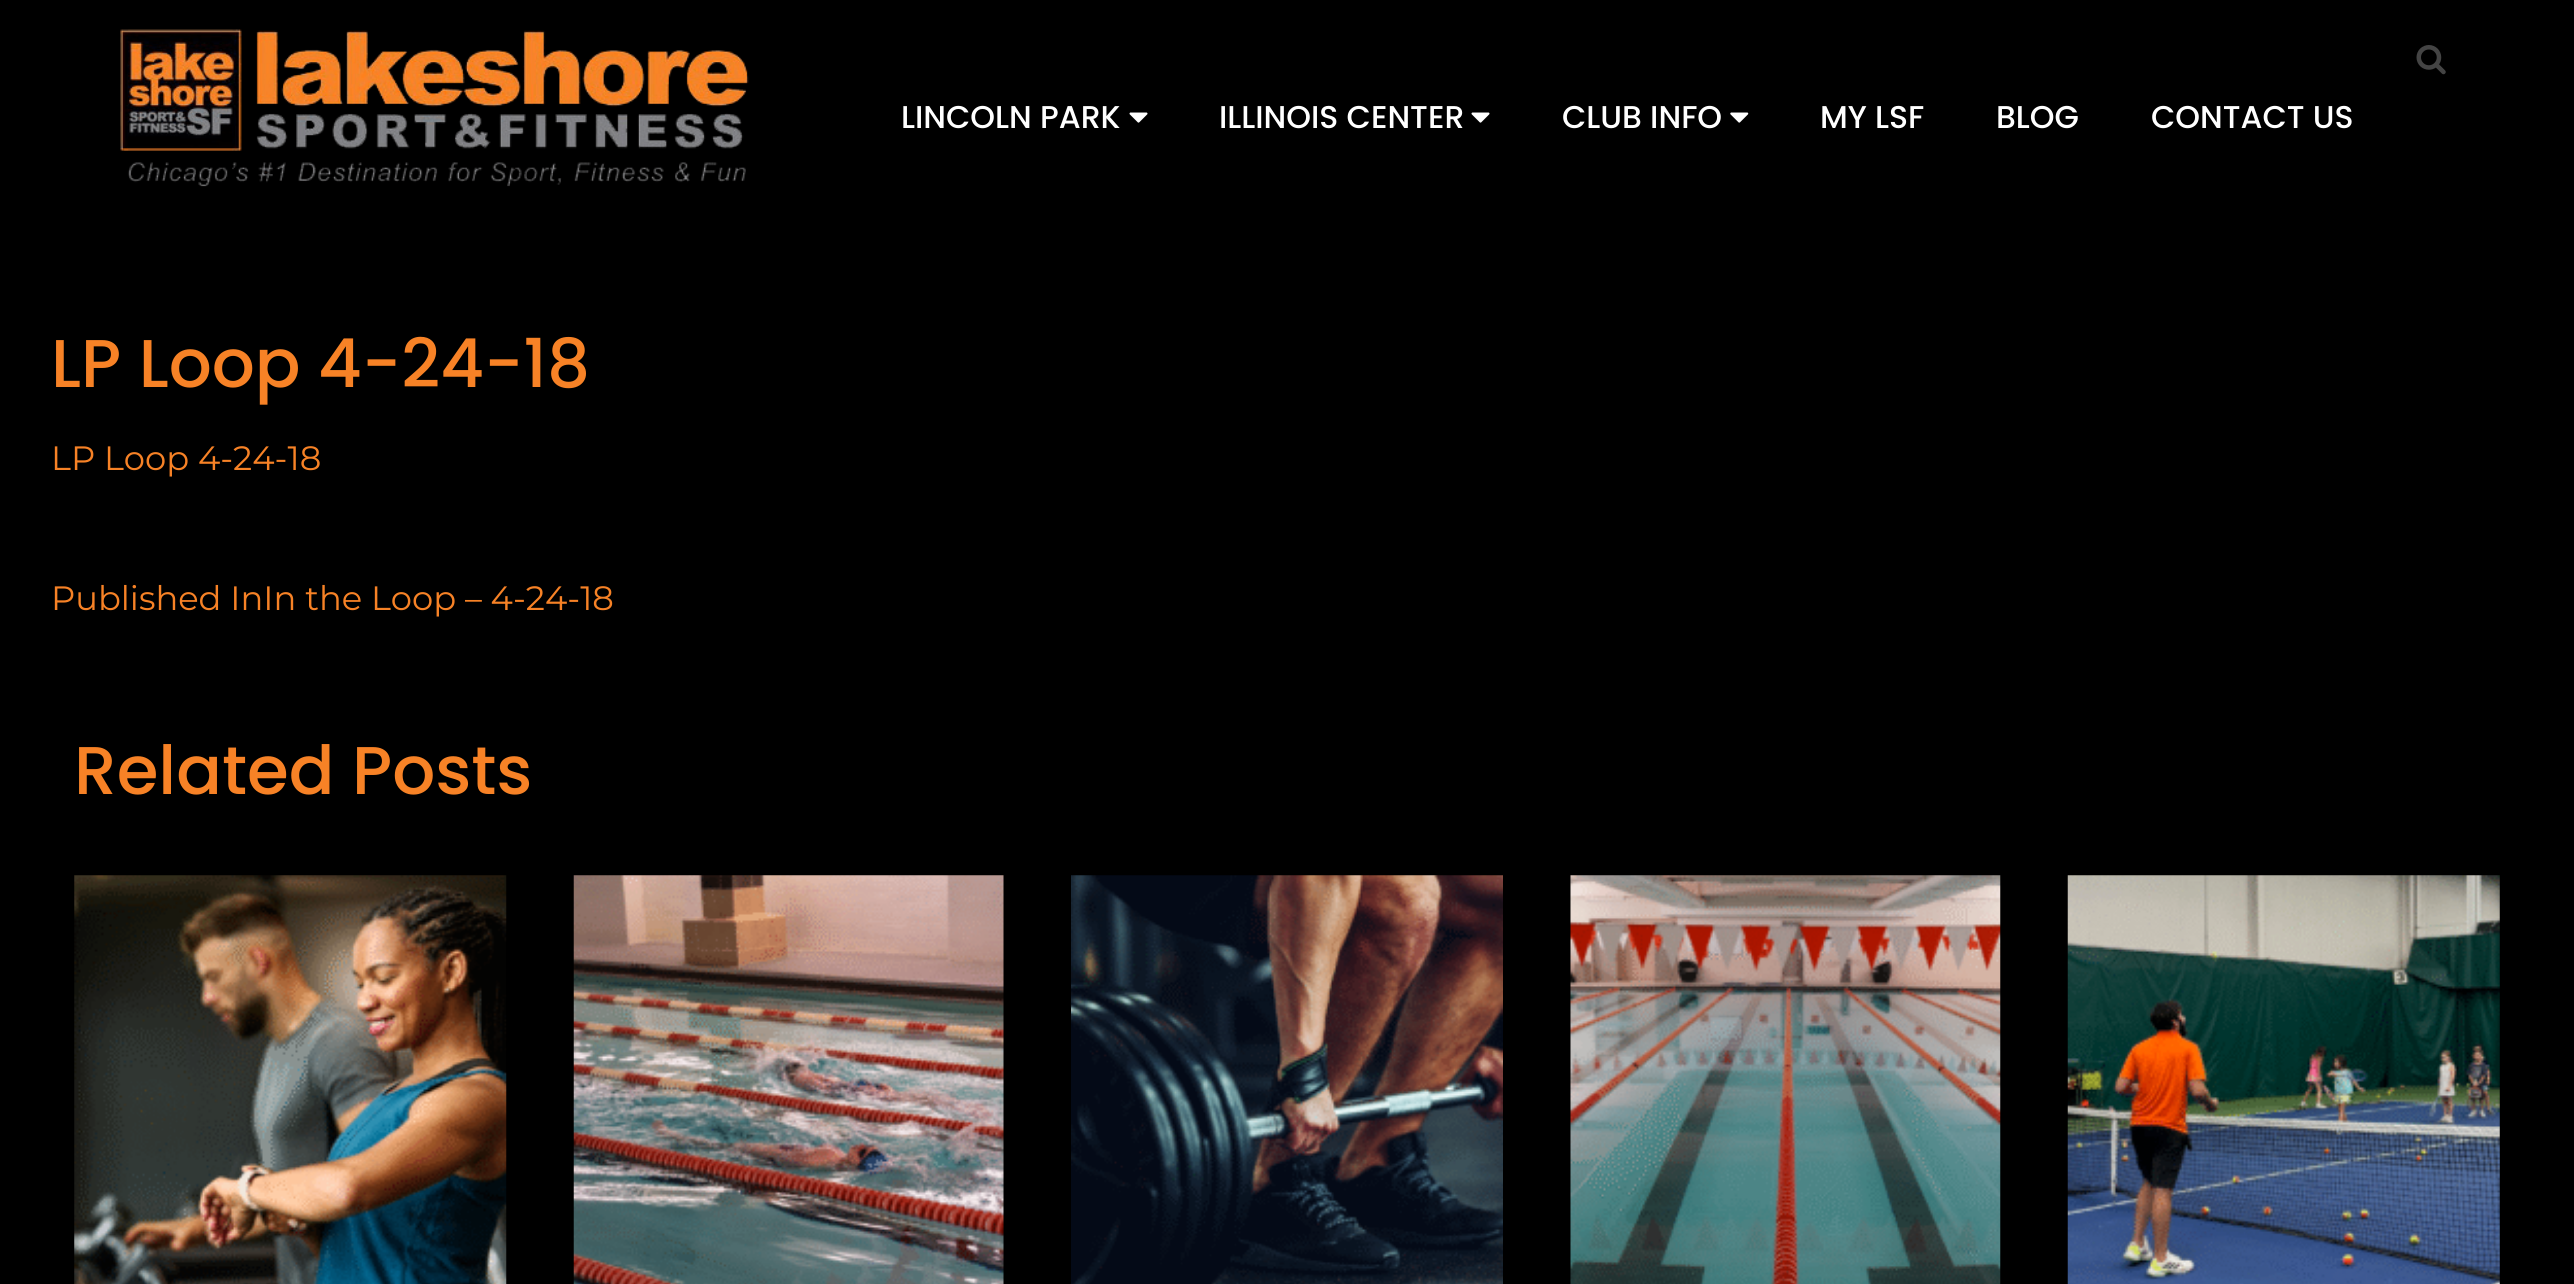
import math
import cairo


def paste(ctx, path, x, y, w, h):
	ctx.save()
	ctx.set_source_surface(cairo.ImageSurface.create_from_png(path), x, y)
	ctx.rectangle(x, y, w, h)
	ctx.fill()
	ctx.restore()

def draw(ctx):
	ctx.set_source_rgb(0, 0, 0)
	ctx.paint()
	paste(ctx, 'media/1.png', 120, 29, 629, 158)
	paste(ctx, 'media/2.png', 2416, 45, 30, 30)
	ctx.select_font_face('Poppins Medium')
	ctx.set_font_size(31.5)
	ctx.set_source_rgb(1, 1, 1)
	ctx.move_to(901, 128)
	ctx.show_text('LINCOLN PARK')
	paste(ctx, 'media/3.png', 1129, 112, 19, 11)
	ctx.move_to(1219, 128)
	ctx.show_text('ILLINOIS CENTER')
	paste(ctx, 'media/3.png', 1471, 112, 19, 11)
	ctx.move_to(1562, 128)
	ctx.show_text('CLUB INFO')
	paste(ctx, 'media/4.png', 1730, 112, 19, 11)
	for x, y, s in [
		(1820, 128, 'MY LSF'),
		(1996, 128, 'BLOG'),
		(2151, 128, 'CONTACT US'),
	]:
		ctx.move_to(x, y)
		ctx.show_text(s)
	ctx.set_font_size(67.5)
	ctx.set_source_rgb(0.965, 0.51, 0.149)
	ctx.move_to(51, 387)
	ctx.show_text('LP Loop 4-24-18')
	ctx.select_font_face('Montserrat')
	ctx.set_font_size(33.75)
	ctx.move_to(51, 470)
	ctx.show_text('LP Loop 4-24-18')
	ctx.move_to(51, 610)
	ctx.show_text('Published InIn the Loop – 4-24-18')
	ctx.select_font_face('Poppins Medium')
	ctx.set_font_size(67.5)
	ctx.move_to(74, 794)
	ctx.show_text('Related Posts')
	paste(ctx, 'media/5.png', 74, 875, 433, 409)
	paste(ctx, 'media/6.png', 573, 875, 431, 409)
	paste(ctx, 'media/7.png', 1071, 875, 432, 409)
	paste(ctx, 'media/8.png', 1570, 875, 431, 409)
	paste(ctx, 'media/9.png', 2067, 875, 433, 409)


surface = cairo.ImageSurface(cairo.FORMAT_RGB24, 2574, 1284)
ctx = cairo.Context(surface)
options = cairo.FontOptions()
options.set_hint_metrics(cairo.HINT_METRICS_OFF)
options.set_hint_style(cairo.HINT_STYLE_NONE)
ctx.set_font_options(options)
ctx.set_miter_limit(4)
draw(ctx)
surface.write_to_png('image.png')
